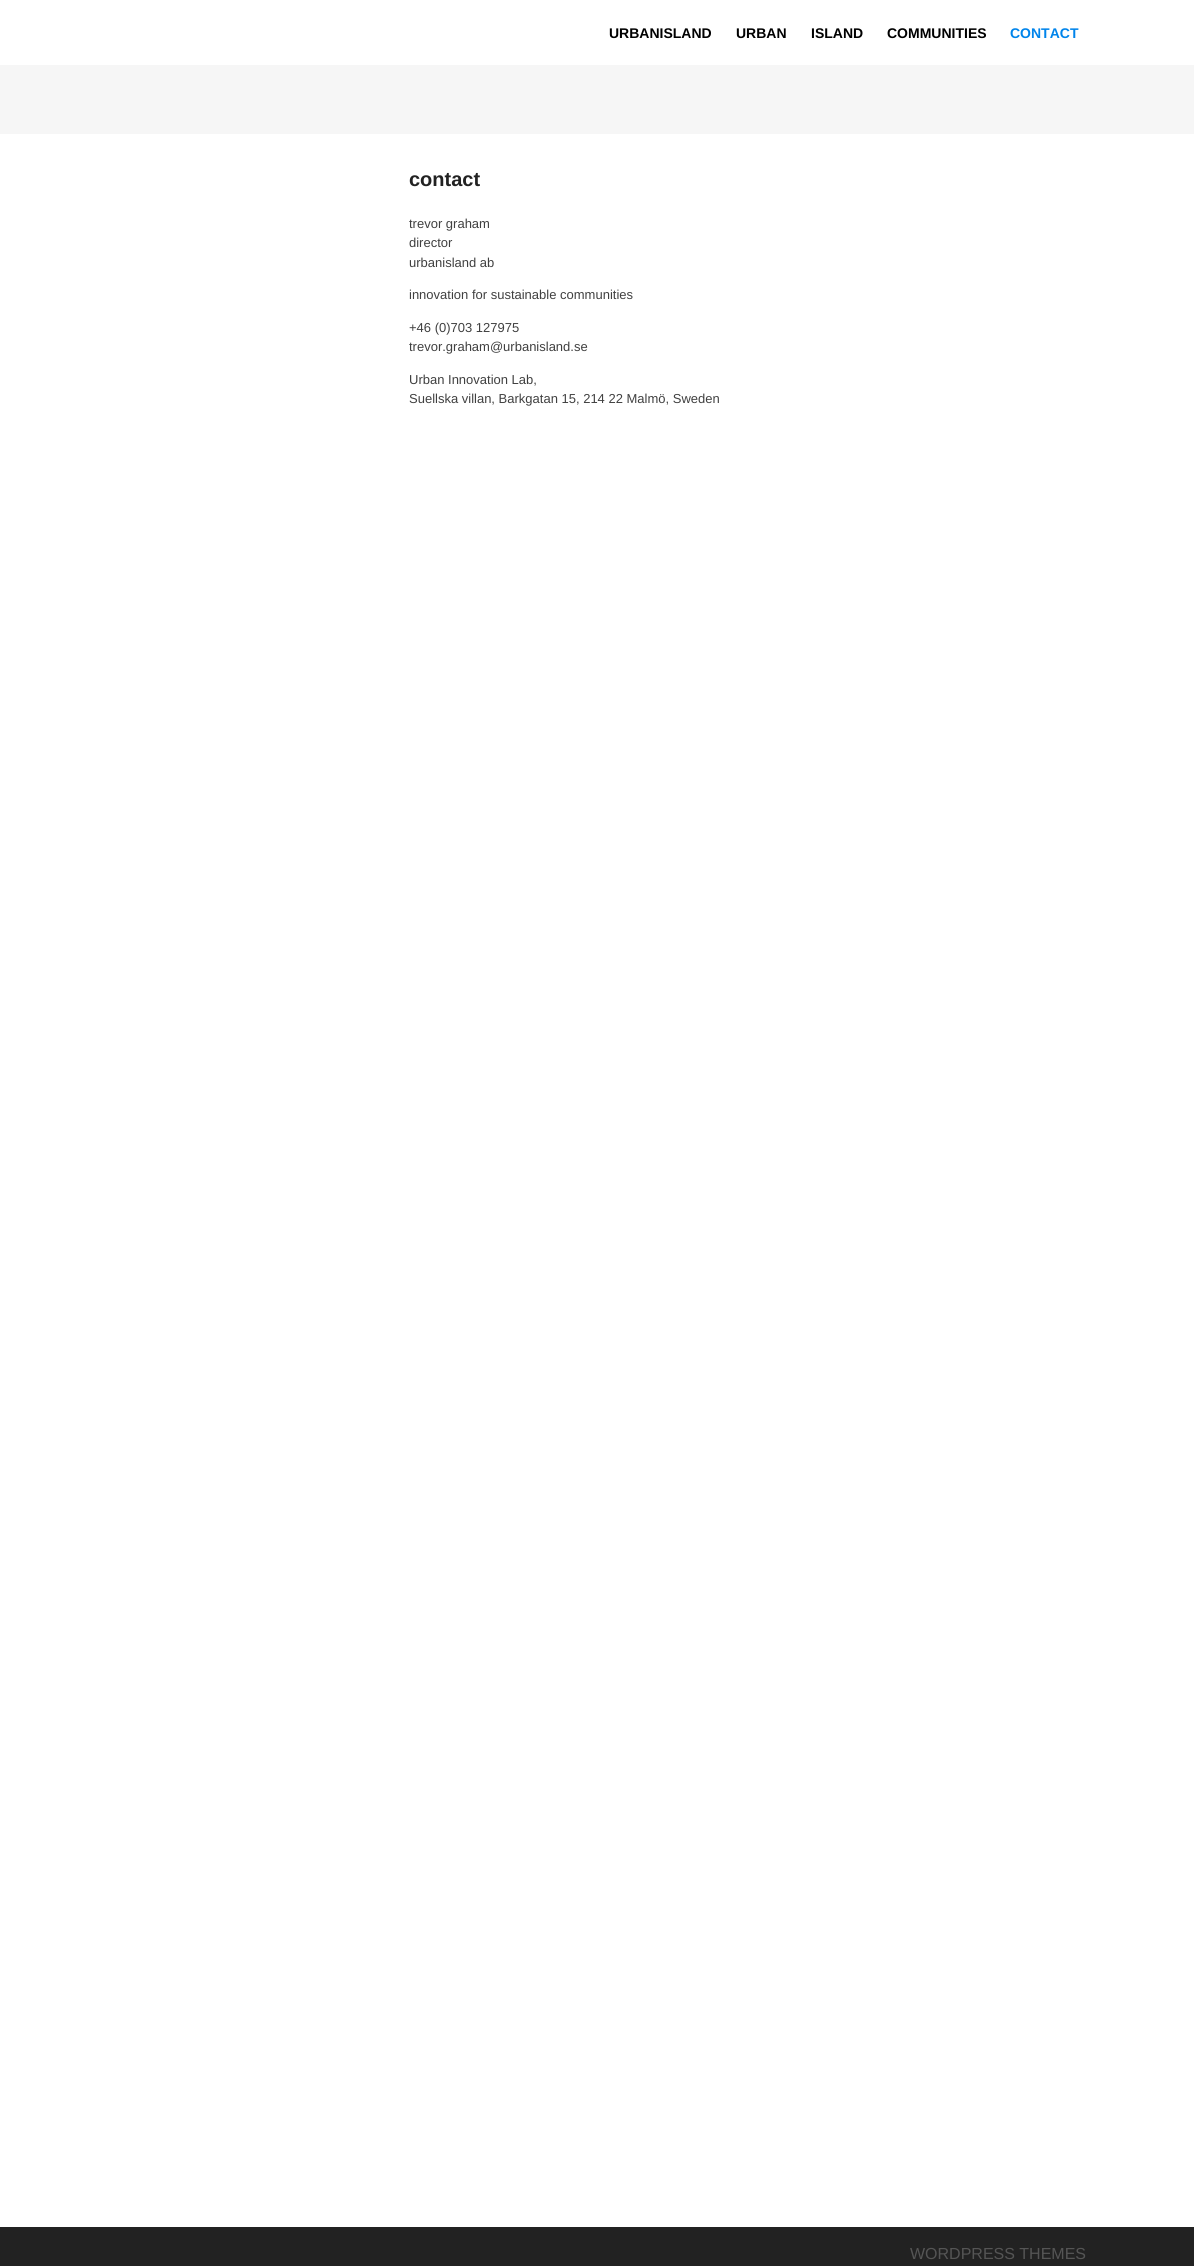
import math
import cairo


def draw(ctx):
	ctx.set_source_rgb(1, 1, 1)
	ctx.paint()
	ctx.select_font_face('Liberation Sans', cairo.FONT_SLANT_NORMAL, cairo.FONT_WEIGHT_BOLD)
	ctx.set_font_size(14)
	ctx.set_source_rgb(0, 0, 0)
	for x, y, s in [
		(609, 38, 'URBANISLAND'),
		(736, 38, 'URBAN'),
		(811, 38, 'ISLAND'),
		(887, 38, 'COMMUNITIES'),
	]:
		ctx.move_to(x, y)
		ctx.show_text(s)
	ctx.set_source_rgb(0, 0.518, 0.918)
	ctx.move_to(1010, 38)
	ctx.show_text('CONTACT')
	ctx.set_source_rgb(0.961, 0.961, 0.961)
	ctx.rectangle(0, 65, 1194, 69)
	ctx.fill()
	ctx.set_font_size(20)
	ctx.set_source_rgb(0.133, 0.133, 0.133)
	ctx.move_to(409, 186)
	ctx.show_text('contact')
	ctx.select_font_face('Liberation Sans')
	ctx.set_font_size(13)
	ctx.set_source_rgb(0.251, 0.251, 0.251)
	for x, y, s in [
		(409, 228, 'trevor graham'),
		(409, 247, 'director'),
		(409, 267, 'urbanisland ab'),
		(409, 299, 'innovation for sustainable communities'),
		(409, 332, '+46 (0)703 127975'),
		(409, 351, 'trevor.graham@urbanisland.se'),
		(409, 384, 'Urban Innovation Lab,'),
		(409, 403, 'Suellska villan, Barkgatan 15, 214 22 Malmö, Sweden'),
	]:
		ctx.move_to(x, y)
		ctx.show_text(s)
	ctx.set_source_rgb(0.133, 0.133, 0.133)
	ctx.rectangle(0, 2227, 1194, 39)
	ctx.fill()
	ctx.set_font_size(16)
	ctx.set_source_rgb(0.333, 0.333, 0.333)
	ctx.move_to(910, 2259)
	ctx.show_text('WORDPRESS THEMES')


surface = cairo.ImageSurface(cairo.FORMAT_RGB24, 1194, 2266)
ctx = cairo.Context(surface)
options = cairo.FontOptions()
options.set_hint_metrics(cairo.HINT_METRICS_OFF)
options.set_hint_style(cairo.HINT_STYLE_NONE)
ctx.set_font_options(options)
ctx.set_miter_limit(4)
draw(ctx)
surface.write_to_png('image.png')
